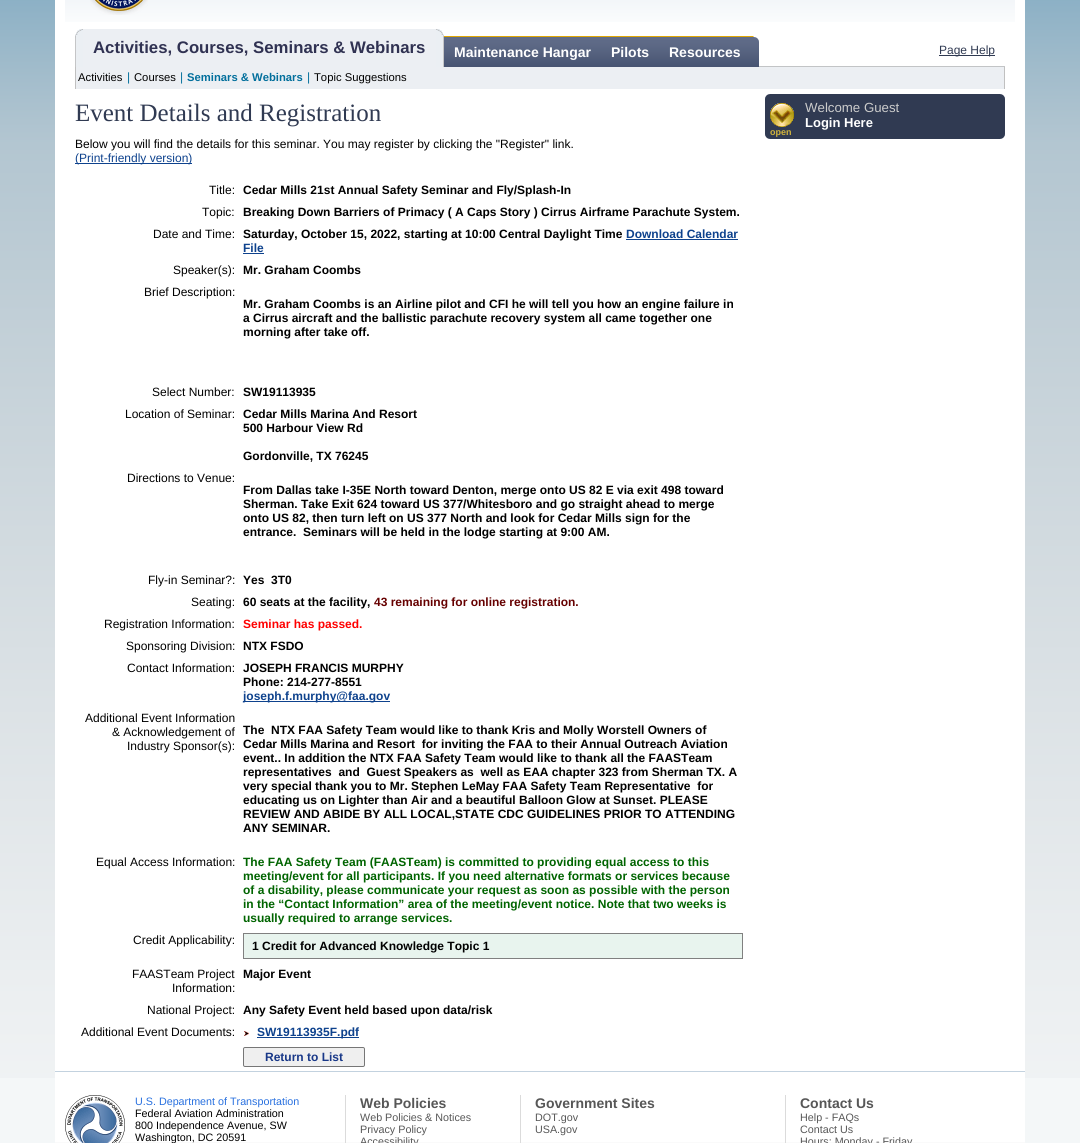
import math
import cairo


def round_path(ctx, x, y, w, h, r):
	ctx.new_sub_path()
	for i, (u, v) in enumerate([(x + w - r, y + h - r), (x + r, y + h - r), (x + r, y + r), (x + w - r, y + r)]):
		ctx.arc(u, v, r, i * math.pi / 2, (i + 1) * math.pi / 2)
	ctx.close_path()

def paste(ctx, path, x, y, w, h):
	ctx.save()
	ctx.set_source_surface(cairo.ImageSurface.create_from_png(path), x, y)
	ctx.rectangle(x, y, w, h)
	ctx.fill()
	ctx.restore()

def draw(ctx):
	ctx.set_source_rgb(0.957, 0.965, 0.969)
	ctx.paint()
	paste(ctx, 'media/1.png', 0, 0, 1080, 1078)
	ctx.set_source_rgb(1, 1, 1)
	ctx.rectangle(55, 0, 970, 1142)
	ctx.fill()
	paste(ctx, 'media/2.png', 65, 0, 950, 22)
	paste(ctx, 'media/3.png', 90, 0, 58, 15)
	ctx.set_source_rgb(0.761, 0.769, 0.776)
	ctx.rectangle(759, 66, 246, 1)
	ctx.fill()
	paste(ctx, 'media/4.png', 75, 29, 8, 38)
	ctx.set_source_rgb(0.922, 0.937, 0.953)
	ctx.rectangle(83, 29, 353, 38)
	ctx.fill()
	ctx.select_font_face('Liberation Sans', cairo.FONT_SLANT_NORMAL, cairo.FONT_WEIGHT_BOLD)
	ctx.set_font_size(16.75)
	ctx.set_source_rgb(0.188, 0.196, 0.322)
	ctx.move_to(93, 53)
	ctx.show_text('Activities, Courses, Seminars & Webinars')
	paste(ctx, 'media/5.png', 436, 29, 8, 38)
	paste(ctx, 'media/6.png', 444, 36, 157, 31)
	ctx.set_font_size(14)
	ctx.set_source_rgb(1, 1, 1)
	ctx.move_to(454, 57)
	ctx.show_text('Maintenance Hangar')
	paste(ctx, 'media/7.png', 601, 36, 58, 31)
	ctx.move_to(611, 57)
	ctx.show_text('Pilots')
	paste(ctx, 'media/8.png', 659, 36, 92, 31)
	ctx.move_to(669, 57)
	ctx.show_text('Resources')
	paste(ctx, 'media/9.png', 751, 36, 8, 31)
	ctx.set_source_rgb(0.188, 0.227, 0.322)
	ctx.rectangle(939, 55, 56, 1)
	ctx.fill()
	ctx.select_font_face('Liberation Sans')
	ctx.set_font_size(12)
	ctx.move_to(939, 54)
	ctx.show_text('Page Help')
	ctx.set_source_rgb(0.922, 0.937, 0.953)
	ctx.rectangle(76, 67, 928, 22)
	ctx.fill()
	ctx.set_source_rgb(0.753, 0.753, 0.753)
	ctx.rectangle(75, 67, 1, 22)
	ctx.fill()
	ctx.set_font_size(11.25)
	ctx.set_source_rgb(0, 0, 0)
	ctx.move_to(78, 81)
	ctx.show_text('Activities')
	ctx.set_font_size(12)
	ctx.set_source_rgb(0.008, 0.435, 0.612)
	ctx.move_to(127, 81)
	ctx.show_text('|')
	ctx.set_font_size(11.25)
	ctx.set_source_rgb(0, 0, 0)
	ctx.move_to(134, 81)
	ctx.show_text('Courses')
	ctx.set_font_size(12)
	ctx.set_source_rgb(0.008, 0.435, 0.612)
	ctx.move_to(180, 81)
	ctx.show_text('|')
	ctx.select_font_face('Liberation Sans', cairo.FONT_SLANT_NORMAL, cairo.FONT_WEIGHT_BOLD)
	ctx.set_font_size(11.25)
	ctx.move_to(187, 81)
	ctx.show_text('Seminars & Webinars')
	ctx.select_font_face('Liberation Sans')
	ctx.set_font_size(12)
	ctx.move_to(307, 81)
	ctx.show_text('|')
	ctx.set_font_size(11.25)
	ctx.set_source_rgb(0, 0, 0)
	ctx.move_to(314, 81)
	ctx.show_text('Topic Suggestions')
	ctx.set_source_rgb(0.753, 0.753, 0.753)
	ctx.rectangle(1004, 67, 1, 22)
	ctx.fill()
	ctx.select_font_face('Liberation Serif')
	ctx.set_font_size(25)
	ctx.set_source_rgb(0.188, 0.227, 0.322)
	ctx.move_to(75, 121)
	ctx.show_text('Event Details and Registration')
	paste(ctx, 'media/10.png', 765, 94, 240, 45)
	ctx.select_font_face('Liberation Sans')
	ctx.set_font_size(13.25)
	ctx.set_source_rgb(0.8, 0.8, 0.8)
	ctx.move_to(805, 112)
	ctx.show_text('Welcome Guest')
	ctx.select_font_face('Liberation Sans', cairo.FONT_SLANT_NORMAL, cairo.FONT_WEIGHT_BOLD)
	ctx.set_font_size(13)
	ctx.set_source_rgb(1, 1, 1)
	ctx.move_to(805, 127)
	ctx.show_text('Login Here')
	paste(ctx, 'media/11.png', 770, 103, 24, 24)
	ctx.set_font_size(9)
	ctx.set_source_rgb(0.82, 0.706, 0.235)
	ctx.move_to(770, 135)
	ctx.show_text('open')
	ctx.select_font_face('Liberation Sans')
	ctx.set_font_size(12)
	ctx.set_source_rgb(0, 0, 0)
	ctx.move_to(75, 148)
	ctx.show_text('Below you will find the details for this seminar. You may register by clicking the "Register" link.')
	ctx.set_source_rgb(0.055, 0.259, 0.553)
	ctx.rectangle(75, 163, 117, 1)
	ctx.fill()
	ctx.move_to(75, 162)
	ctx.show_text('(Print-friendly version)')
	ctx.set_source_rgb(0, 0, 0)
	ctx.move_to(209, 194)
	ctx.show_text('Title:')
	ctx.select_font_face('Liberation Sans', cairo.FONT_SLANT_NORMAL, cairo.FONT_WEIGHT_BOLD)
	ctx.move_to(243, 194)
	ctx.show_text('Cedar Mills 21st Annual Safety Seminar and Fly/Splash-In')
	ctx.select_font_face('Liberation Sans')
	ctx.move_to(202, 216)
	ctx.show_text('Topic:')
	ctx.select_font_face('Liberation Sans', cairo.FONT_SLANT_NORMAL, cairo.FONT_WEIGHT_BOLD)
	ctx.move_to(243, 216)
	ctx.show_text('Breaking Down Barriers of Primacy ( A Caps Story ) Cirrus Airframe Parachute System.')
	ctx.select_font_face('Liberation Sans')
	ctx.move_to(153, 238)
	ctx.show_text('Date and Time:')
	ctx.select_font_face('Liberation Sans', cairo.FONT_SLANT_NORMAL, cairo.FONT_WEIGHT_BOLD)
	ctx.move_to(243, 238)
	ctx.show_text('Saturday, October 15, 2022, starting at 10:00 Central Daylight Time')
	ctx.set_source_rgb(0.055, 0.259, 0.553)
	ctx.move_to(626, 238)
	ctx.show_text('Download Calendar')
	ctx.rectangle(626, 239, 112, 1)
	ctx.fill()
	ctx.move_to(243, 252)
	ctx.show_text('File')
	ctx.rectangle(243, 253, 21, 1)
	ctx.fill()
	ctx.select_font_face('Liberation Sans')
	ctx.set_source_rgb(0, 0, 0)
	ctx.move_to(173, 274)
	ctx.show_text('Speaker(s):')
	ctx.select_font_face('Liberation Sans', cairo.FONT_SLANT_NORMAL, cairo.FONT_WEIGHT_BOLD)
	ctx.move_to(243, 274)
	ctx.show_text('Mr. Graham Coombs')
	ctx.select_font_face('Liberation Sans')
	ctx.move_to(144, 296)
	ctx.show_text('Brief Description:')
	ctx.select_font_face('Liberation Sans', cairo.FONT_SLANT_NORMAL, cairo.FONT_WEIGHT_BOLD)
	for x, y, s in [
		(243, 308, 'Mr. Graham Coombs is an Airline pilot and CFI he will tell you how an engine failure in'),
		(243, 322, 'a Cirrus aircraft and the ballistic parachute recovery system all came together one'),
		(243, 336, 'morning after take off.'),
	]:
		ctx.move_to(x, y)
		ctx.show_text(s)
	ctx.select_font_face('Liberation Sans')
	ctx.move_to(152, 396)
	ctx.show_text('Select Number:')
	ctx.select_font_face('Liberation Sans', cairo.FONT_SLANT_NORMAL, cairo.FONT_WEIGHT_BOLD)
	ctx.move_to(243, 396)
	ctx.show_text('SW19113935')
	ctx.select_font_face('Liberation Sans')
	ctx.move_to(125, 418)
	ctx.show_text('Location of Seminar:')
	ctx.select_font_face('Liberation Sans', cairo.FONT_SLANT_NORMAL, cairo.FONT_WEIGHT_BOLD)
	for x, y, s in [
		(243, 418, 'Cedar Mills Marina And Resort'),
		(243, 432, '500 Harbour View Rd'),
		(243, 460, 'Gordonville, TX 76245'),
	]:
		ctx.move_to(x, y)
		ctx.show_text(s)
	ctx.select_font_face('Liberation Sans')
	ctx.move_to(127, 482)
	ctx.show_text('Directions to Venue:')
	ctx.select_font_face('Liberation Sans', cairo.FONT_SLANT_NORMAL, cairo.FONT_WEIGHT_BOLD)
	for x, y, s in [
		(243, 494, 'From Dallas take I-35E North toward Denton, merge onto US 82 E via exit 498 toward'),
		(243, 508, 'Sherman. Take Exit 624 toward US 377/Whitesboro and go straight ahead to merge'),
		(243, 522, 'onto US 82, then turn left on US 377 North and look for Cedar Mills sign for the'),
		(243, 536, 'entrance.  Seminars will be held in the lodge starting at 9:00 AM.'),
	]:
		ctx.move_to(x, y)
		ctx.show_text(s)
	ctx.select_font_face('Liberation Sans')
	ctx.move_to(148, 584)
	ctx.show_text('Fly-in Seminar?:')
	ctx.select_font_face('Liberation Sans', cairo.FONT_SLANT_NORMAL, cairo.FONT_WEIGHT_BOLD)
	ctx.move_to(243, 584)
	ctx.show_text('Yes  3T0')
	ctx.select_font_face('Liberation Sans')
	ctx.move_to(191, 606)
	ctx.show_text('Seating:')
	ctx.select_font_face('Liberation Sans', cairo.FONT_SLANT_NORMAL, cairo.FONT_WEIGHT_BOLD)
	ctx.move_to(243, 606)
	ctx.show_text('60 seats at the facility,')
	ctx.set_source_rgb(0.4, 0, 0)
	ctx.move_to(374, 606)
	ctx.show_text('43 remaining for online registration.')
	ctx.select_font_face('Liberation Sans')
	ctx.set_source_rgb(0, 0, 0)
	ctx.move_to(104, 628)
	ctx.show_text('Registration Information:')
	ctx.select_font_face('Liberation Sans', cairo.FONT_SLANT_NORMAL, cairo.FONT_WEIGHT_BOLD)
	ctx.set_source_rgb(1, 0, 0)
	ctx.move_to(243, 628)
	ctx.show_text('Seminar has passed.')
	ctx.select_font_face('Liberation Sans')
	ctx.set_source_rgb(0, 0, 0)
	ctx.move_to(126, 650)
	ctx.show_text('Sponsoring Division:')
	ctx.select_font_face('Liberation Sans', cairo.FONT_SLANT_NORMAL, cairo.FONT_WEIGHT_BOLD)
	ctx.move_to(243, 650)
	ctx.show_text('NTX FSDO')
	ctx.select_font_face('Liberation Sans')
	ctx.move_to(127, 672)
	ctx.show_text('Contact Information:')
	ctx.select_font_face('Liberation Sans', cairo.FONT_SLANT_NORMAL, cairo.FONT_WEIGHT_BOLD)
	ctx.move_to(243, 672)
	ctx.show_text('JOSEPH FRANCIS MURPHY')
	ctx.move_to(243, 686)
	ctx.show_text('Phone: 214-277-8551')
	ctx.set_source_rgb(0.055, 0.259, 0.553)
	ctx.rectangle(243, 701, 147, 1)
	ctx.fill()
	ctx.move_to(243, 700)
	ctx.show_text('joseph.f.murphy@faa.gov')
	ctx.select_font_face('Liberation Sans')
	ctx.set_source_rgb(0, 0, 0)
	for x, y, s in [
		(85, 722, 'Additional Event Information'),
		(112, 736, '& Acknowledgement of'),
		(127, 750, 'Industry Sponsor(s):'),
	]:
		ctx.move_to(x, y)
		ctx.show_text(s)
	ctx.select_font_face('Liberation Sans', cairo.FONT_SLANT_NORMAL, cairo.FONT_WEIGHT_BOLD)
	for x, y, s in [
		(243, 734, 'The  NTX FAA Safety Team would like to thank Kris and Molly Worstell Owners of'),
		(243, 748, 'Cedar Mills Marina and Resort  for inviting the FAA to their Annual Outreach Aviation'),
		(243, 762, 'event.. In addition the NTX FAA Safety Team would like to thank all the FAASTeam'),
		(243, 776, 'representatives  and  Guest Speakers as  well as EAA chapter 323 from Sherman TX. A'),
		(243, 790, 'very special thank you to Mr. Stephen LeMay FAA Safety Team Representative  for'),
		(243, 804, 'educating us on Lighter than Air and a beautiful Balloon Glow at Sunset. PLEASE'),
		(243, 818, 'REVIEW AND ABIDE BY ALL LOCAL,STATE CDC GUIDELINES PRIOR TO ATTENDING'),
		(243, 832, 'ANY SEMINAR.'),
	]:
		ctx.move_to(x, y)
		ctx.show_text(s)
	ctx.select_font_face('Liberation Sans')
	ctx.move_to(96, 866)
	ctx.show_text('Equal Access Information:')
	ctx.select_font_face('Liberation Sans', cairo.FONT_SLANT_NORMAL, cairo.FONT_WEIGHT_BOLD)
	ctx.set_source_rgb(0, 0.392, 0)
	for x, y, s in [
		(243, 866, 'The FAA Safety Team (FAASTeam) is committed to providing equal access to this'),
		(243, 880, 'meeting/event for all participants. If you need alternative formats or services because'),
		(243, 894, 'of a disability, please communicate your request as soon as possible with the person'),
		(243, 908, 'in the “Contact Information” area of the meeting/event notice. Note that two weeks is'),
		(243, 922, 'usually required to arrange services.'),
	]:
		ctx.move_to(x, y)
		ctx.show_text(s)
	ctx.select_font_face('Liberation Sans')
	ctx.set_source_rgb(0, 0, 0)
	ctx.move_to(133, 944)
	ctx.show_text('Credit Applicability:')
	ctx.set_source_rgb(0.91, 0.957, 0.933)
	ctx.rectangle(243.5, 933.5, 499, 25)
	ctx.fill_preserve()
	ctx.set_source_rgb(0.502, 0.502, 0.502)
	ctx.set_line_width(1)
	ctx.stroke()
	ctx.select_font_face('Liberation Sans', cairo.FONT_SLANT_NORMAL, cairo.FONT_WEIGHT_BOLD)
	ctx.set_source_rgb(0, 0, 0)
	ctx.move_to(252, 950)
	ctx.show_text('1 Credit for Advanced Knowledge Topic 1')
	ctx.select_font_face('Liberation Sans')
	ctx.move_to(132, 978)
	ctx.show_text('FAASTeam Project')
	ctx.move_to(172, 992)
	ctx.show_text('Information:')
	ctx.select_font_face('Liberation Sans', cairo.FONT_SLANT_NORMAL, cairo.FONT_WEIGHT_BOLD)
	ctx.move_to(243, 978)
	ctx.show_text('Major Event')
	ctx.select_font_face('Liberation Sans')
	ctx.move_to(147, 1014)
	ctx.show_text('National Project:')
	ctx.select_font_face('Liberation Sans', cairo.FONT_SLANT_NORMAL, cairo.FONT_WEIGHT_BOLD)
	ctx.move_to(243, 1014)
	ctx.show_text('Any Safety Event held based upon data/risk')
	ctx.select_font_face('Liberation Sans')
	ctx.move_to(81, 1036)
	ctx.show_text('Additional Event Documents:')
	paste(ctx, 'media/12.png', 244, 1031, 5, 5)
	ctx.set_source_rgb(0.055, 0.259, 0.553)
	ctx.rectangle(257, 1037, 102, 1)
	ctx.fill()
	ctx.select_font_face('Liberation Sans', cairo.FONT_SLANT_NORMAL, cairo.FONT_WEIGHT_BOLD)
	ctx.move_to(257, 1036)
	ctx.show_text('SW19113935F.pdf')
	ctx.set_source_rgb(0.937, 0.937, 0.937)
	round_path(ctx, 243.5, 1047.5, 121, 19, 1.5)
	ctx.fill_preserve()
	ctx.set_source_rgb(0.463, 0.463, 0.463)
	ctx.stroke()
	ctx.set_source_rgb(0.098, 0.22, 0.533)
	ctx.move_to(265, 1061)
	ctx.show_text('Return to List')
	ctx.set_source_rgb(0.98, 0.98, 0.98)
	ctx.rectangle(55, 1142, 970, 1)
	ctx.fill()
	ctx.set_source_rgb(0.765, 0.824, 0.875)
	ctx.rectangle(55, 1071, 970, 1)
	ctx.fill()
	paste(ctx, 'media/13.png', 65, 1095, 60, 48)
	ctx.select_font_face('Liberation Sans')
	ctx.set_font_size(10.75)
	ctx.set_source_rgb(0.157, 0.439, 0.875)
	ctx.move_to(135, 1105)
	ctx.show_text('U.S. Department of Transportation')
	ctx.set_source_rgb(0, 0, 0)
	for x, y, s in [
		(135, 1117, 'Federal Aviation Administration'),
		(135, 1129, '800 Independence Avenue, SW'),
		(135, 1141, 'Washington, DC 20591'),
	]:
		ctx.move_to(x, y)
		ctx.show_text(s)
	ctx.set_source_rgb(0.859, 0.859, 0.859)
	ctx.rectangle(345, 1095, 1, 48)
	ctx.fill()
	ctx.select_font_face('Liberation Sans', cairo.FONT_SLANT_NORMAL, cairo.FONT_WEIGHT_BOLD)
	ctx.set_font_size(14)
	ctx.set_source_rgb(0.341, 0.341, 0.341)
	ctx.move_to(360, 1108)
	ctx.show_text('Web Policies')
	ctx.select_font_face('Liberation Sans')
	ctx.set_font_size(10.75)
	for x, y, s in [
		(360, 1121, 'Web Policies & Notices'),
		(360, 1133, 'Privacy Policy'),
		(360, 1145, 'Accessibility'),
	]:
		ctx.move_to(x, y)
		ctx.show_text(s)
	ctx.set_source_rgb(0.859, 0.859, 0.859)
	ctx.rectangle(520, 1095, 1, 48)
	ctx.fill()
	ctx.select_font_face('Liberation Sans', cairo.FONT_SLANT_NORMAL, cairo.FONT_WEIGHT_BOLD)
	ctx.set_font_size(14)
	ctx.set_source_rgb(0.341, 0.341, 0.341)
	ctx.move_to(535, 1108)
	ctx.show_text('Government Sites')
	ctx.select_font_face('Liberation Sans')
	ctx.set_font_size(10.75)
	ctx.move_to(535, 1121)
	ctx.show_text('DOT.gov')
	ctx.move_to(535, 1133)
	ctx.show_text('USA.gov')
	ctx.set_source_rgb(0.859, 0.859, 0.859)
	ctx.rectangle(785, 1095, 1, 48)
	ctx.fill()
	ctx.select_font_face('Liberation Sans', cairo.FONT_SLANT_NORMAL, cairo.FONT_WEIGHT_BOLD)
	ctx.set_font_size(14)
	ctx.set_source_rgb(0.341, 0.341, 0.341)
	ctx.move_to(800, 1108)
	ctx.show_text('Contact Us')
	ctx.select_font_face('Liberation Sans')
	ctx.set_font_size(10.75)
	for x, y, s in [
		(800, 1121, 'Help - FAQs'),
		(800, 1133, 'Contact Us'),
		(800, 1145, 'Hours: Monday - Friday'),
	]:
		ctx.move_to(x, y)
		ctx.show_text(s)


surface = cairo.ImageSurface(cairo.FORMAT_RGB24, 1080, 1143)
ctx = cairo.Context(surface)
options = cairo.FontOptions()
options.set_hint_metrics(cairo.HINT_METRICS_OFF)
options.set_hint_style(cairo.HINT_STYLE_NONE)
ctx.set_font_options(options)
ctx.set_miter_limit(4)
draw(ctx)
surface.write_to_png('image.png')
